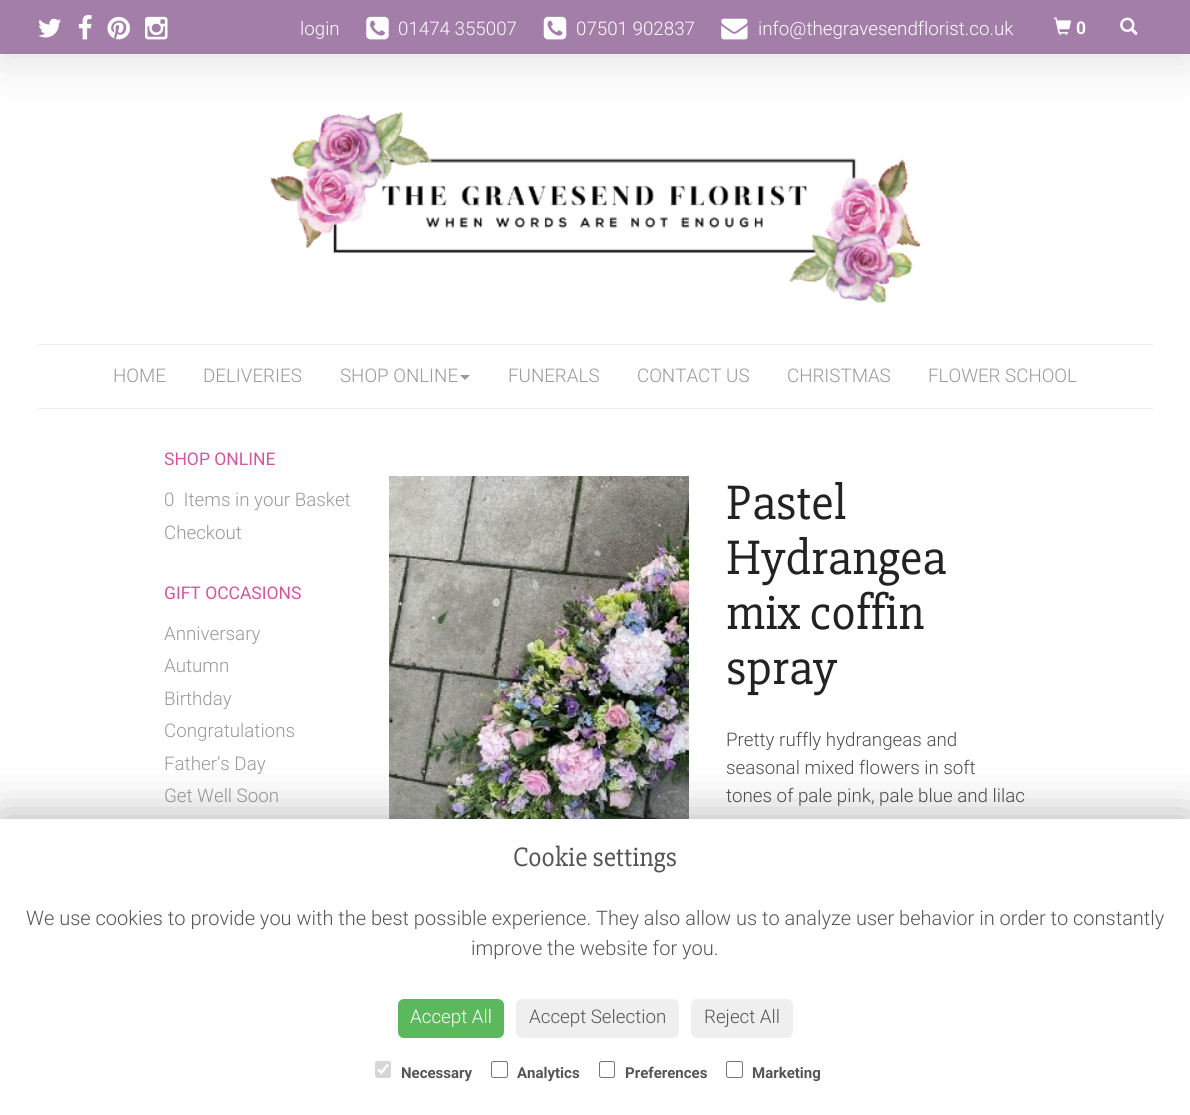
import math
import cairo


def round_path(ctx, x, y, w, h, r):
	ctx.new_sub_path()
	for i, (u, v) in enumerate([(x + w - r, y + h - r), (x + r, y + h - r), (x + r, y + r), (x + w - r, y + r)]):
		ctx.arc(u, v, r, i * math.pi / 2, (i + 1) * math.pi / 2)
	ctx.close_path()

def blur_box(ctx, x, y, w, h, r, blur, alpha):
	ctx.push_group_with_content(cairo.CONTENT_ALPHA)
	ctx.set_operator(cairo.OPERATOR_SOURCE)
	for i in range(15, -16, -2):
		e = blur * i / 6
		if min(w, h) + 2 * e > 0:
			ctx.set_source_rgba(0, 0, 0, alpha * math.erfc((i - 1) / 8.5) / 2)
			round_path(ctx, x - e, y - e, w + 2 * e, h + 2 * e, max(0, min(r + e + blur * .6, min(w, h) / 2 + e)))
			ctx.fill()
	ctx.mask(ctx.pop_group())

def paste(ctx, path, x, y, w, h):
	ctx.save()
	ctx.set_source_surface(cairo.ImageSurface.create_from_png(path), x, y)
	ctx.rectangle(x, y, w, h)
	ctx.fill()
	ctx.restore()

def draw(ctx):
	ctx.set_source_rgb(1, 1, 1)
	ctx.paint()
	paste(ctx, 'media/10.png', 270, 112, 651, 191)
	ctx.set_source_rgb(0.847, 0.847, 0.847)
	blur_box(ctx, 0, 0, 1190, 54, 0, 25, 1)
	ctx.set_source_rgb(0.639, 0.494, 0.663)
	ctx.rectangle(0, 0, 1190, 54)
	ctx.fill()
	paste(ctx, 'media/1.png', 38, 18, 23, 20)
	paste(ctx, 'media/2.png', 78, 15, 14, 25)
	paste(ctx, 'media/3.png', 107, 16, 23, 24)
	paste(ctx, 'media/4.png', 145, 16, 23, 24)
	ctx.select_font_face('Roboto Light')
	ctx.set_font_size(18.75)
	ctx.set_source_rgb(1, 1, 1)
	ctx.move_to(300, 35)
	ctx.show_text('login')
	paste(ctx, 'media/5.png', 366, 16, 23, 24)
	ctx.move_to(398, 35)
	ctx.show_text('01474 355007')
	paste(ctx, 'media/6.png', 543, 16, 24, 24)
	ctx.move_to(576, 35)
	ctx.show_text('07501 902837')
	paste(ctx, 'media/7.png', 721, 18, 27, 22)
	ctx.move_to(758, 35)
	ctx.show_text('info@thegravesendflorist.co.uk')
	paste(ctx, 'media/8.png', 1053, 17, 18, 18)
	ctx.select_font_face('Roboto', cairo.FONT_SLANT_NORMAL, cairo.FONT_WEIGHT_BOLD)
	ctx.set_font_size(17.5)
	ctx.move_to(1076, 34)
	ctx.show_text('0')
	paste(ctx, 'media/9.png', 1120, 17, 18, 18)
	ctx.set_source_rgb(0.925, 0.925, 0.925)
	ctx.rectangle(38, 344, 1115, 1)
	ctx.fill()
	ctx.rectangle(38, 408, 1115, 1)
	ctx.fill()
	ctx.select_font_face('Roboto Light')
	ctx.set_font_size(18.75)
	ctx.set_source_rgb(0.6, 0.6, 0.6)
	for x, y, s in [
		(113, 382, 'HOME'),
		(203, 382, 'DELIVERIES'),
		(340, 382, 'SHOP ONLINE'),
	]:
		ctx.move_to(x, y)
		ctx.show_text(s)
	ctx.new_path()
	ctx.move_to(460, 375)
	ctx.line_to(470, 375)
	ctx.line_to(465, 380)
	ctx.close_path()
	ctx.fill()
	for x, y, s in [
		(508, 382, 'FUNERALS'),
		(637, 382, 'CONTACT US'),
		(787, 382, 'CHRISTMAS'),
		(928, 382, 'FLOWER SCHOOL'),
	]:
		ctx.move_to(x, y)
		ctx.show_text(s)
	ctx.select_font_face('Roboto')
	ctx.set_font_size(17.5)
	ctx.set_source_rgb(0.827, 0.337, 0.627)
	ctx.move_to(164, 465)
	ctx.show_text('SHOP ONLINE')
	ctx.select_font_face('Roboto Light')
	ctx.set_font_size(18.75)
	ctx.set_source_rgb(0.6, 0.6, 0.6)
	ctx.move_to(164, 506)
	ctx.show_text('0  Items in your Basket')
	ctx.move_to(164, 539)
	ctx.show_text('Checkout')
	ctx.select_font_face('Roboto')
	ctx.set_font_size(17.5)
	ctx.set_source_rgb(0.827, 0.337, 0.627)
	ctx.move_to(164, 599)
	ctx.show_text('GIFT OCCASIONS')
	ctx.select_font_face('Roboto Light')
	ctx.set_font_size(18.75)
	ctx.set_source_rgb(0.6, 0.6, 0.6)
	for x, y, s in [
		(164, 640, 'Anniversary'),
		(164, 672, 'Autumn'),
		(164, 705, 'Birthday'),
		(164, 737, 'Congratulations'),
		(164, 770, 'Father’s Day'),
		(164, 802, 'Get Well Soon'),
	]:
		ctx.move_to(x, y)
		ctx.show_text(s)
	paste(ctx, 'media/11.png', 389, 476, 300, 343)
	ctx.select_font_face('Slabo 27px')
	ctx.set_font_size(50)
	ctx.set_source_rgb(0.133, 0.133, 0.133)
	for x, y, s in [
		(726, 519, 'Pastel'),
		(726, 574, 'Hydrangea'),
		(726, 629, 'mix coffin'),
		(726, 684, 'spray'),
	]:
		ctx.move_to(x, y)
		ctx.show_text(s)
	ctx.select_font_face('Roboto Light')
	ctx.set_font_size(18.75)
	ctx.set_source_rgb(0.306, 0.298, 0.298)
	for x, y, s in [
		(726, 746, 'Pretty ruffly hydrangeas and'),
		(726, 774, 'seasonal mixed flowers in soft'),
		(726, 802, 'tones of pale pink, pale blue and lilac'),
	]:
		ctx.move_to(x, y)
		ctx.show_text(s)
	ctx.set_source_rgb(0, 0, 0)
	blur_box(ctx, 0, 819, 1190, 296, 0, 25, 0.31)
	ctx.set_source_rgb(1, 1, 1)
	ctx.rectangle(0, 819, 1190, 296)
	ctx.fill()
	ctx.select_font_face('Slabo 27px')
	ctx.set_font_size(27.5)
	ctx.set_source_rgb(0.333, 0.333, 0.333)
	ctx.move_to(513, 866)
	ctx.show_text('Cookie settings')
	ctx.select_font_face('Roboto Light')
	ctx.set_font_size(20)
	ctx.move_to(26, 925)
	ctx.show_text('We use cookies to provide you with the best possible experience. They also allow us to analyze user behavior in order to constantly')
	ctx.move_to(471, 955)
	ctx.show_text('improve the website for you.')
	ctx.set_source_rgb(0.361, 0.722, 0.361)
	round_path(ctx, 398, 999, 106, 39, 6)
	ctx.fill()
	ctx.set_font_size(18.75)
	ctx.set_source_rgb(1, 1, 1)
	ctx.move_to(410, 1023)
	ctx.show_text('Accept All')
	ctx.set_source_rgb(0.937, 0.937, 0.937)
	round_path(ctx, 516, 999, 163, 39, 6)
	ctx.fill()
	ctx.set_source_rgb(0.333, 0.333, 0.333)
	ctx.move_to(529, 1023)
	ctx.show_text('Accept Selection')
	ctx.set_source_rgb(0.937, 0.937, 0.937)
	round_path(ctx, 691, 999, 102, 39, 6)
	ctx.fill()
	ctx.set_source_rgb(0.333, 0.333, 0.333)
	ctx.move_to(704, 1023)
	ctx.show_text('Reject All')
	ctx.set_source_rgb(0.839, 0.839, 0.839)
	round_path(ctx, 375, 1061, 16, 17, 2.5)
	ctx.fill()
	ctx.new_path()
	ctx.move_to(378, 1069.5)
	ctx.line_to(381.5, 1072.5)
	ctx.line_to(388, 1064.5)
	ctx.set_source_rgb(1, 1, 1)
	ctx.set_line_width(2.6)
	ctx.stroke()
	ctx.select_font_face('Roboto', cairo.FONT_SLANT_NORMAL, cairo.FONT_WEIGHT_BOLD)
	ctx.set_font_size(15)
	ctx.set_source_rgb(0.333, 0.333, 0.333)
	ctx.move_to(401, 1078)
	ctx.show_text('Necessary')
	round_path(ctx, 491.5, 1061.5, 16, 16, 2)
	ctx.set_source_rgb(0.463, 0.463, 0.463)
	ctx.set_line_width(1)
	ctx.stroke()
	ctx.set_source_rgb(0.333, 0.333, 0.333)
	ctx.move_to(517, 1078)
	ctx.show_text('Analytics')
	round_path(ctx, 599.5, 1061.5, 15, 16, 2)
	ctx.set_source_rgb(0.463, 0.463, 0.463)
	ctx.stroke()
	ctx.set_source_rgb(0.333, 0.333, 0.333)
	ctx.move_to(625, 1078)
	ctx.show_text('Preferences')
	round_path(ctx, 726.5, 1061.5, 16, 16, 2)
	ctx.set_source_rgb(0.463, 0.463, 0.463)
	ctx.stroke()
	ctx.set_source_rgb(0.333, 0.333, 0.333)
	ctx.move_to(752, 1078)
	ctx.show_text('Marketing')


surface = cairo.ImageSurface(cairo.FORMAT_RGB24, 1190, 1115)
ctx = cairo.Context(surface)
options = cairo.FontOptions()
options.set_hint_metrics(cairo.HINT_METRICS_OFF)
options.set_hint_style(cairo.HINT_STYLE_NONE)
ctx.set_font_options(options)
ctx.set_miter_limit(4)
draw(ctx)
surface.write_to_png('image.png')
